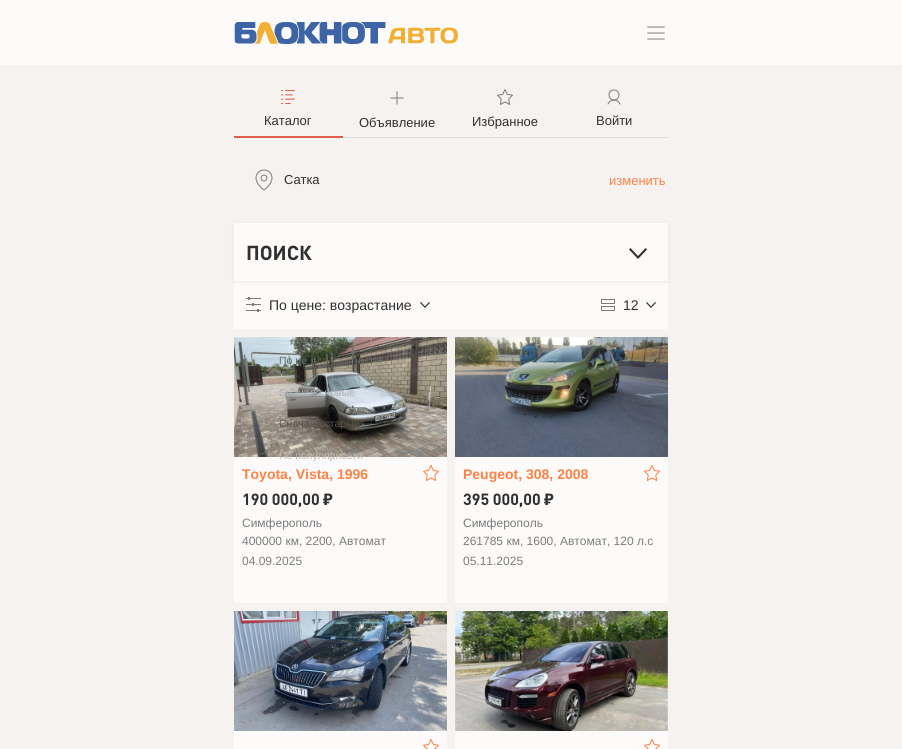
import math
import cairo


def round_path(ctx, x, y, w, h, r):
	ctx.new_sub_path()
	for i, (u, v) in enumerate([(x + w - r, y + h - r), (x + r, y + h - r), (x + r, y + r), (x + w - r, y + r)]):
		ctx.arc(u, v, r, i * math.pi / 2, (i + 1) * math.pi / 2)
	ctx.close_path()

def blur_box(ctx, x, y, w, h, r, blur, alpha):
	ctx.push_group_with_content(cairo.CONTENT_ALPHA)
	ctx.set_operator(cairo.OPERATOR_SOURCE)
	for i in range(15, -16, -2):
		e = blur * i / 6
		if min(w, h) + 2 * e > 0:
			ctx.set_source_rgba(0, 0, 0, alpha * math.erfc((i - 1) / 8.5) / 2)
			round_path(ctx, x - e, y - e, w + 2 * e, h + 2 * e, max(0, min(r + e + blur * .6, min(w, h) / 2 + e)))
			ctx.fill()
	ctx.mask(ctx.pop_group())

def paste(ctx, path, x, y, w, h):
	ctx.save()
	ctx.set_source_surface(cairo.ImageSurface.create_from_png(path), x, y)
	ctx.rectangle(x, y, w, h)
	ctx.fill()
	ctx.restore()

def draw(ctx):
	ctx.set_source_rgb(0.961, 0.949, 0.937)
	ctx.paint()
	ctx.set_source_rgb(0.992, 0.984, 0.976)
	ctx.rectangle(0, 0, 902, 65)
	ctx.fill()
	paste(ctx, 'media/1.png', 234, 21, 225, 23)
	paste(ctx, 'media/2.png', 647, 26, 18, 14)
	ctx.set_source_rgb(0.878, 0.365, 0.298)
	ctx.rectangle(234, 136, 109, 2)
	ctx.fill()
	paste(ctx, 'media/3.png', 281, 90, 14, 14)
	ctx.select_font_face('Liberation Sans')
	ctx.set_font_size(13)
	ctx.set_source_rgb(0.188, 0.188, 0.188)
	ctx.move_to(264, 125)
	ctx.show_text('Каталог')
	ctx.set_source_rgb(0.871, 0.871, 0.871)
	ctx.rectangle(343, 137, 325, 1)
	ctx.fill()
	paste(ctx, 'media/4.png', 390, 91, 14, 14)
	ctx.set_source_rgb(0.188, 0.188, 0.188)
	ctx.move_to(359, 127)
	ctx.show_text('Объявление')
	paste(ctx, 'media/5.png', 497, 89, 16, 16)
	ctx.move_to(472, 126)
	ctx.show_text('Избранное')
	paste(ctx, 'media/6.png', 607, 89, 14, 16)
	ctx.move_to(596, 125)
	ctx.show_text('Войти')
	paste(ctx, 'media/7.png', 255, 169, 18, 22)
	ctx.move_to(284, 184)
	ctx.show_text('Сатка')
	ctx.set_source_rgb(1, 0.502, 0.271)
	ctx.move_to(609, 185)
	ctx.show_text('изменить')
	ctx.set_source_rgb(0.992, 0.984, 0.976)
	ctx.rectangle(234, 281, 434, 48)
	ctx.fill()
	ctx.set_source_rgb(0.929, 0.898, 0.871)
	blur_box(ctx, 234, 224, 434, 58, 0, 2, 1)
	ctx.set_source_rgb(0.992, 0.984, 0.976)
	ctx.rectangle(234, 223, 434, 58)
	ctx.fill()
	ctx.select_font_face('DIN', cairo.FONT_SLANT_NORMAL, cairo.FONT_WEIGHT_BOLD)
	ctx.set_font_size(20)
	ctx.set_source_rgb(0.188, 0.188, 0.188)
	ctx.move_to(246, 260)
	ctx.show_text('ПОИСК')
	ctx.new_path()
	ctx.move_to(638, 256)
	ctx.line_to(645.5, 248)
	ctx.line_to(647, 249.5)
	ctx.line_to(638, 259)
	ctx.line_to(629, 249.5)
	ctx.line_to(630.5, 248)
	ctx.close_path()
	ctx.fill()
	paste(ctx, 'media/8.png', 246, 297, 15, 15)
	ctx.select_font_face('Liberation Sans')
	ctx.set_font_size(14)
	ctx.move_to(269, 310)
	ctx.show_text('По цене: возрастание')
	paste(ctx, 'media/9.png', 420, 302, 10, 6)
	paste(ctx, 'media/11.png', 234, 337, 213, 120)
	ctx.set_font_size(10.5)
	ctx.set_source_rgb(0.412, 0.424, 0.4)
	for x, y, s in [
		(279, 364, 'По це'),
		(319, 364, ':'),
		(355, 364, 'н'),
	]:
		ctx.move_to(x, y)
		ctx.show_text(s)
	ctx.set_source_rgb(0.675, 0.694, 0.71)
	ctx.move_to(279, 396)
	ctx.show_text('Сначала новые')
	ctx.set_source_rgb(0.349, 0.329, 0.294)
	ctx.move_to(279, 427)
	ctx.show_text('Сначала старые')
	ctx.set_source_rgb(0.992, 0.984, 0.976)
	ctx.rectangle(234, 457, 213, 146)
	ctx.fill()
	ctx.set_source_rgb(0.745, 0.718, 0.686)
	ctx.move_to(279, 459)
	ctx.show_text('По популярности')
	paste(ctx, 'media/10.png', 601, 299, 14, 12)
	ctx.set_font_size(14)
	ctx.set_source_rgb(0.188, 0.188, 0.188)
	ctx.move_to(623, 310)
	ctx.show_text('12')
	paste(ctx, 'media/9.png', 646, 302, 10, 6)
	paste(ctx, 'media/13.png', 455, 337, 213, 120)
	ctx.set_font_size(10.5)
	ctx.set_source_rgb(0.31, 0.341, 0.361)
	ctx.move_to(617, 364)
	ctx.show_text('24')
	ctx.select_font_face('Liberation Sans', cairo.FONT_SLANT_NORMAL, cairo.FONT_WEIGHT_BOLD)
	ctx.set_font_size(14)
	ctx.set_source_rgb(1, 0.502, 0.271)
	ctx.move_to(242, 479)
	ctx.show_text('Toyota, Vista, 1996')
	paste(ctx, 'media/12.png', 423, 465, 16, 16)
	ctx.select_font_face('DIN', cairo.FONT_SLANT_NORMAL, cairo.FONT_WEIGHT_BOLD)
	ctx.set_font_size(16)
	ctx.set_source_rgb(0.188, 0.188, 0.188)
	ctx.move_to(242, 505)
	ctx.show_text('190 000,00')
	ctx.select_font_face('Noto Sans', cairo.FONT_SLANT_NORMAL, cairo.FONT_WEIGHT_BOLD)
	ctx.move_to(323, 505)
	ctx.show_text('₽')
	ctx.select_font_face('Liberation Sans')
	ctx.set_font_size(12)
	ctx.set_source_rgb(0.486, 0.486, 0.486)
	for x, y, s in [
		(242, 527, 'Симферополь'),
		(242, 545, '400000 км, 2200, Автомат'),
		(242, 565, '04.09.2025'),
	]:
		ctx.move_to(x, y)
		ctx.show_text(s)
	ctx.set_source_rgb(0.992, 0.984, 0.976)
	ctx.rectangle(455, 457, 213, 146)
	ctx.fill()
	ctx.select_font_face('Liberation Sans', cairo.FONT_SLANT_NORMAL, cairo.FONT_WEIGHT_BOLD)
	ctx.set_font_size(14)
	ctx.set_source_rgb(1, 0.502, 0.271)
	ctx.move_to(463, 479)
	ctx.show_text('Peugeot, 308, 2008')
	paste(ctx, 'media/12.png', 644, 465, 16, 16)
	ctx.select_font_face('DIN', cairo.FONT_SLANT_NORMAL, cairo.FONT_WEIGHT_BOLD)
	ctx.set_font_size(16)
	ctx.set_source_rgb(0.188, 0.188, 0.188)
	ctx.move_to(463, 505)
	ctx.show_text('395 000,00')
	ctx.select_font_face('Noto Sans', cairo.FONT_SLANT_NORMAL, cairo.FONT_WEIGHT_BOLD)
	ctx.move_to(544, 505)
	ctx.show_text('₽')
	ctx.select_font_face('Liberation Sans')
	ctx.set_font_size(12)
	ctx.set_source_rgb(0.486, 0.486, 0.486)
	for x, y, s in [
		(463, 527, 'Симферополь'),
		(463, 545, '261785 км, 1600, Автомат, 120 л.с'),
		(463, 565, '05.11.2025'),
	]:
		ctx.move_to(x, y)
		ctx.show_text(s)
	paste(ctx, 'media/14.png', 234, 611, 213, 120)
	ctx.set_source_rgb(0.992, 0.984, 0.976)
	ctx.rectangle(234, 731, 213, 18)
	ctx.fill()
	paste(ctx, 'media/15.png', 423, 739, 16, 10)
	paste(ctx, 'media/16.png', 455, 611, 213, 120)
	ctx.rectangle(455, 731, 213, 18)
	ctx.fill()
	paste(ctx, 'media/15.png', 644, 739, 16, 10)


surface = cairo.ImageSurface(cairo.FORMAT_RGB24, 902, 749)
ctx = cairo.Context(surface)
options = cairo.FontOptions()
options.set_hint_metrics(cairo.HINT_METRICS_OFF)
options.set_hint_style(cairo.HINT_STYLE_NONE)
ctx.set_font_options(options)
ctx.set_miter_limit(4)
draw(ctx)
surface.write_to_png('image.png')
